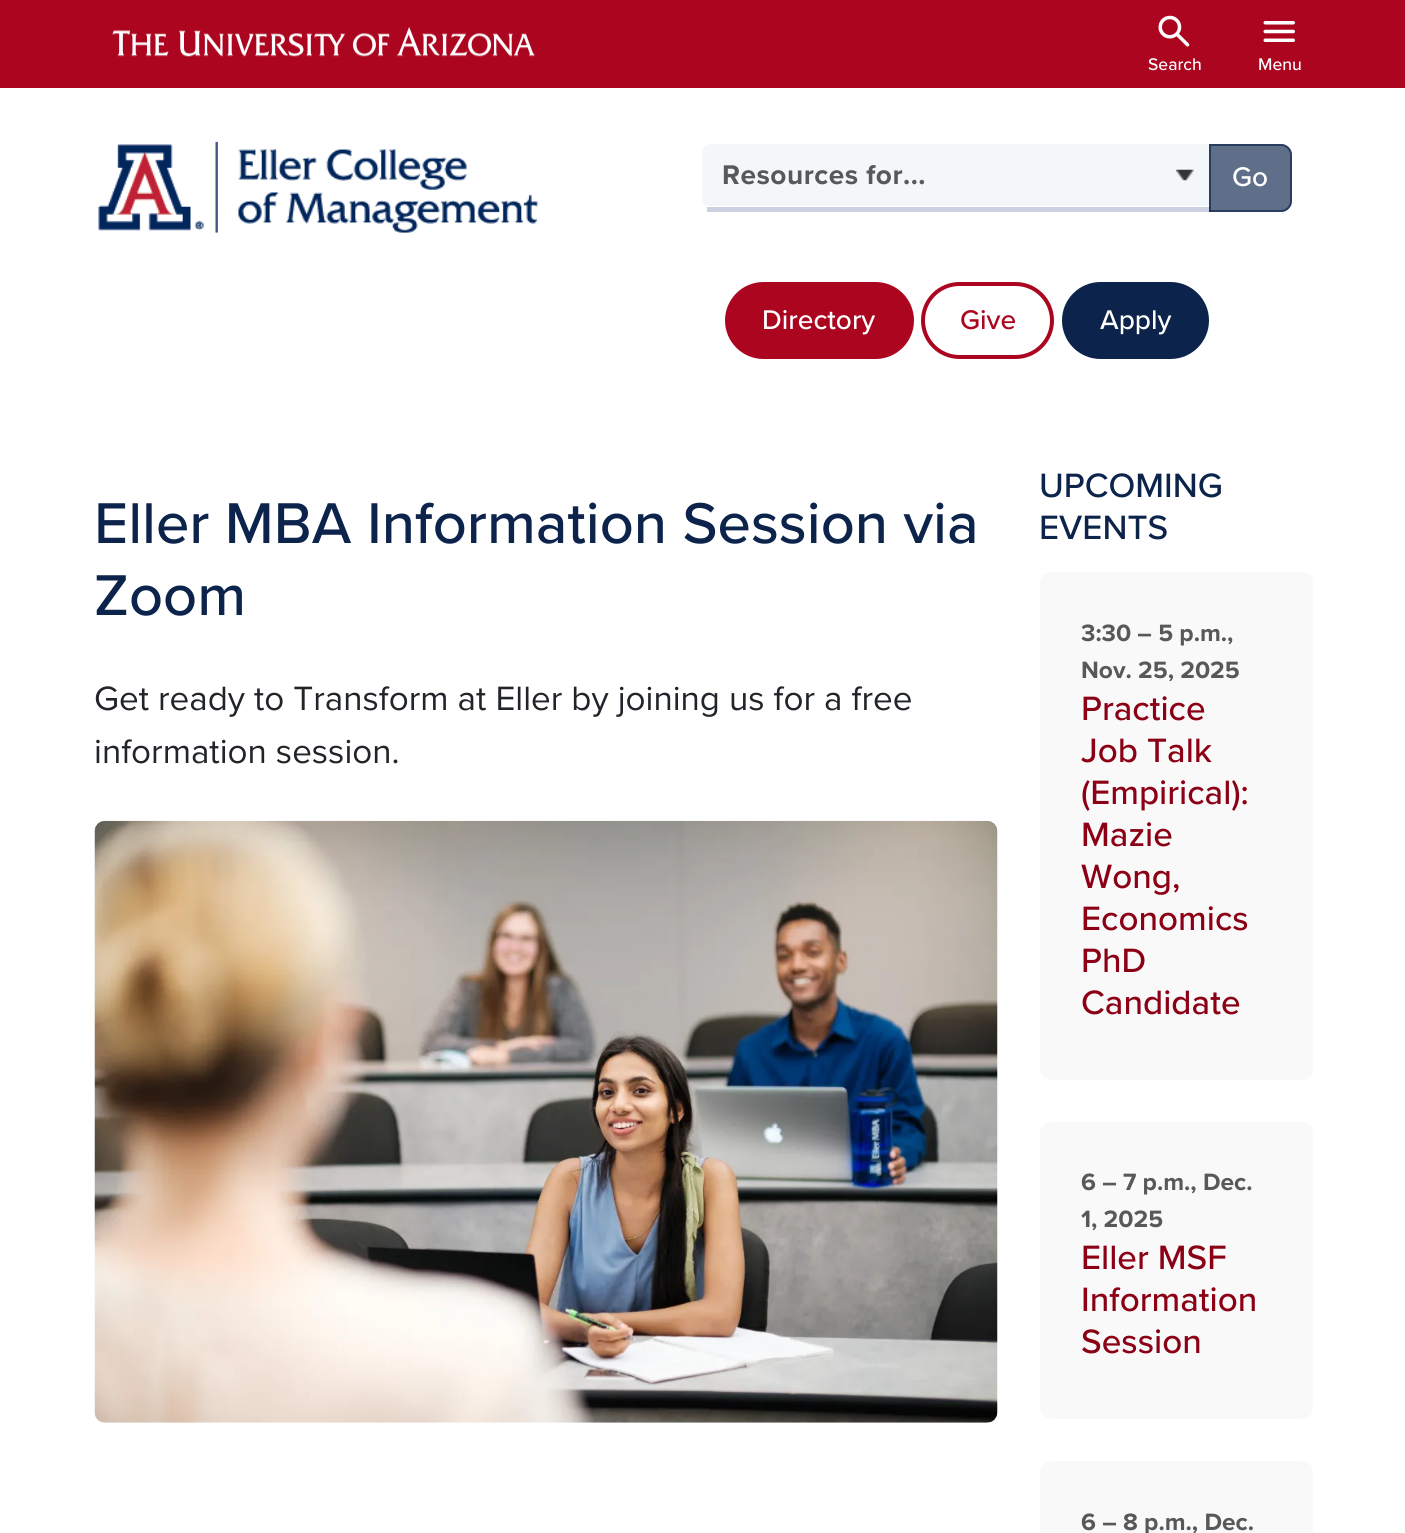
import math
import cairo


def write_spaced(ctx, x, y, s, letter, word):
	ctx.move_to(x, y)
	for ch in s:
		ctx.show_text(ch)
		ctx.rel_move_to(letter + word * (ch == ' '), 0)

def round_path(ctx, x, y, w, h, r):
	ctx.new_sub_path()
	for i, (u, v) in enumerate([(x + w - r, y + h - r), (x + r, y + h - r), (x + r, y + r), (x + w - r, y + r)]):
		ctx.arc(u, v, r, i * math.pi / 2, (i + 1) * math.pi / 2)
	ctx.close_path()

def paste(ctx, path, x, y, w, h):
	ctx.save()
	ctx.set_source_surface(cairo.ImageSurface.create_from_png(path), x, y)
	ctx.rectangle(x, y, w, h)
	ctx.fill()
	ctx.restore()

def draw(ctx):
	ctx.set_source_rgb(1, 1, 1)
	ctx.paint()
	ctx.set_source_rgb(0.671, 0.02, 0.125)
	ctx.rectangle(0, 0, 1405, 88)
	ctx.fill()
	paste(ctx, 'media/1.png', 112, 27, 423, 30)
	paste(ctx, 'media/2.png', 1158, 15, 32, 32)
	ctx.select_font_face('Proxima Nova Medium')
	ctx.set_font_size(17.5)
	ctx.set_source_rgb(1, 1, 1)
	ctx.move_to(1148, 70)
	ctx.show_text('Search')
	paste(ctx, 'media/3.png', 1263, 21, 32, 21)
	ctx.move_to(1258, 70)
	ctx.show_text('Menu')
	paste(ctx, 'media/4.png', 98, 141, 441, 92)
	ctx.set_source_rgb(0.957, 0.965, 0.976)
	ctx.new_path()
	ctx.move_to(712, 144)
	ctx.line_to(1211, 144)
	ctx.line_to(1211, 206)
	ctx.line_to(712, 206)
	ctx.curve_to(706, 206, 702, 204, 702, 201)
	ctx.line_to(702, 154)
	ctx.curve_to(702, 148, 706, 144, 712, 144)
	ctx.close_path()
	ctx.fill()
	paste(ctx, 'media/5.png', 1176, 169, 18, 12)
	ctx.set_source_rgb(0.796, 0.82, 0.878)
	ctx.rectangle(707, 207, 504, 5)
	ctx.fill()
	ctx.select_font_face('Proxima Nova', cairo.FONT_SLANT_NORMAL, cairo.FONT_WEIGHT_BOLD)
	ctx.set_font_size(28)
	ctx.set_source_rgb(0.341, 0.345, 0.353)
	write_spaced(ctx, 722, 184, 'Resources for...', 0.5, 0)
	ctx.set_source_rgba(0.047, 0.137, 0.294, 0.65)
	ctx.new_path()
	ctx.move_to(1209, 144)
	ctx.line_to(1281, 144)
	ctx.curve_to(1287, 144, 1292, 149, 1292, 155)
	ctx.line_to(1292, 201)
	ctx.curve_to(1292, 207, 1287, 212, 1281, 212)
	ctx.line_to(1209, 212)
	ctx.close_path()
	ctx.fill()
	ctx.new_path()
	ctx.move_to(1210, 145)
	ctx.line_to(1281, 145)
	ctx.curve_to(1286.5, 145, 1291, 149.5, 1291, 155)
	ctx.line_to(1291, 201)
	ctx.curve_to(1291, 206.5, 1286.5, 211, 1281, 211)
	ctx.line_to(1210, 211)
	ctx.close_path()
	ctx.stroke()
	ctx.select_font_face('Proxima Nova Medium')
	ctx.set_source_rgb(1, 1, 1)
	ctx.move_to(1232, 186)
	ctx.show_text('Go')
	ctx.set_source_rgb(0.671, 0.02, 0.125)
	round_path(ctx, 727, 284, 185, 73, 36.5)
	ctx.fill_preserve()
	ctx.set_line_width(4)
	ctx.stroke()
	ctx.set_source_rgb(1, 1, 1)
	ctx.move_to(762, 329)
	ctx.show_text('Directory')
	round_path(ctx, 923, 284, 129, 73, 36.5)
	ctx.set_source_rgb(0.671, 0.02, 0.125)
	ctx.stroke()
	ctx.move_to(960, 329)
	ctx.show_text('Give')
	ctx.set_source_rgb(0.047, 0.137, 0.294)
	round_path(ctx, 1064, 284, 143, 73, 36.5)
	ctx.fill_preserve()
	ctx.stroke()
	ctx.set_source_rgb(1, 1, 1)
	ctx.move_to(1100, 329)
	ctx.show_text('Apply')
	ctx.set_font_size(59.6)
	ctx.set_source_rgb(0.047, 0.137, 0.294)
	ctx.move_to(94, 543)
	ctx.show_text('Eller MBA Information Session via')
	ctx.move_to(94, 615)
	ctx.show_text('Zoom')
	ctx.select_font_face('Proxima Nova')
	ctx.set_font_size(35)
	ctx.set_source_rgb(0.129, 0.145, 0.161)
	ctx.move_to(94, 710)
	ctx.show_text('Get ready to Transform at Eller by joining us for a free')
	ctx.move_to(94, 763)
	ctx.show_text('information session.')
	paste(ctx, 'media/6.png', 94, 820, 904, 603)
	ctx.select_font_face('Proxima Nova Medium')
	ctx.set_source_rgb(0.047, 0.137, 0.294)
	ctx.move_to(1039, 497)
	ctx.show_text('UPCOMING')
	ctx.move_to(1039, 539)
	ctx.show_text('EVENTS')
	ctx.set_source_rgb(0.973, 0.976, 0.98)
	round_path(ctx, 1040, 572, 273, 508, 11)
	ctx.fill()
	ctx.select_font_face('Proxima Nova', cairo.FONT_SLANT_NORMAL, cairo.FONT_WEIGHT_BOLD)
	ctx.set_font_size(24.5)
	ctx.set_source_rgb(0.341, 0.345, 0.353)
	ctx.move_to(1081, 641)
	ctx.show_text('3:30 – 5 p.m.,')
	ctx.move_to(1081, 678)
	ctx.show_text('Nov. 25, 2025')
	ctx.select_font_face('Proxima Nova Medium')
	ctx.set_font_size(35)
	ctx.set_source_rgb(0.545, 0, 0.082)
	for x, y, s in [
		(1081, 720, 'Practice'),
		(1081, 762, 'Job Talk'),
		(1081, 804, '(Empirical):'),
		(1081, 846, 'Mazie'),
		(1081, 888, 'Wong,'),
		(1081, 930, 'Economics'),
		(1081, 972, 'PhD'),
		(1081, 1014, 'Candidate'),
	]:
		ctx.move_to(x, y)
		ctx.show_text(s)
	ctx.set_source_rgb(0.973, 0.976, 0.98)
	round_path(ctx, 1040, 1122, 273, 297, 11)
	ctx.fill()
	ctx.select_font_face('Proxima Nova', cairo.FONT_SLANT_NORMAL, cairo.FONT_WEIGHT_BOLD)
	ctx.set_font_size(24.5)
	ctx.set_source_rgb(0.341, 0.345, 0.353)
	ctx.move_to(1081, 1190)
	ctx.show_text('6 – 7 p.m., Dec.')
	ctx.move_to(1081, 1227)
	ctx.show_text('1, 2025')
	ctx.select_font_face('Proxima Nova Medium')
	ctx.set_font_size(35)
	ctx.set_source_rgb(0.545, 0, 0.082)
	for x, y, s in [
		(1081, 1269, 'Eller MSF'),
		(1081, 1311, 'Information'),
		(1081, 1353, 'Session'),
	]:
		ctx.move_to(x, y)
		ctx.show_text(s)
	ctx.set_source_rgb(0.973, 0.976, 0.98)
	round_path(ctx, 1040, 1461, 273, 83, 11)
	ctx.fill()
	ctx.select_font_face('Proxima Nova', cairo.FONT_SLANT_NORMAL, cairo.FONT_WEIGHT_BOLD)
	ctx.set_font_size(24.5)
	ctx.set_source_rgb(0.341, 0.345, 0.353)
	ctx.move_to(1081, 1530)
	ctx.show_text('6 – 8 p.m., Dec.')


surface = cairo.ImageSurface(cairo.FORMAT_RGB24, 1405, 1533)
ctx = cairo.Context(surface)
options = cairo.FontOptions()
options.set_hint_metrics(cairo.HINT_METRICS_OFF)
options.set_hint_style(cairo.HINT_STYLE_NONE)
ctx.set_font_options(options)
ctx.set_miter_limit(4)
draw(ctx)
surface.write_to_png('image.png')
